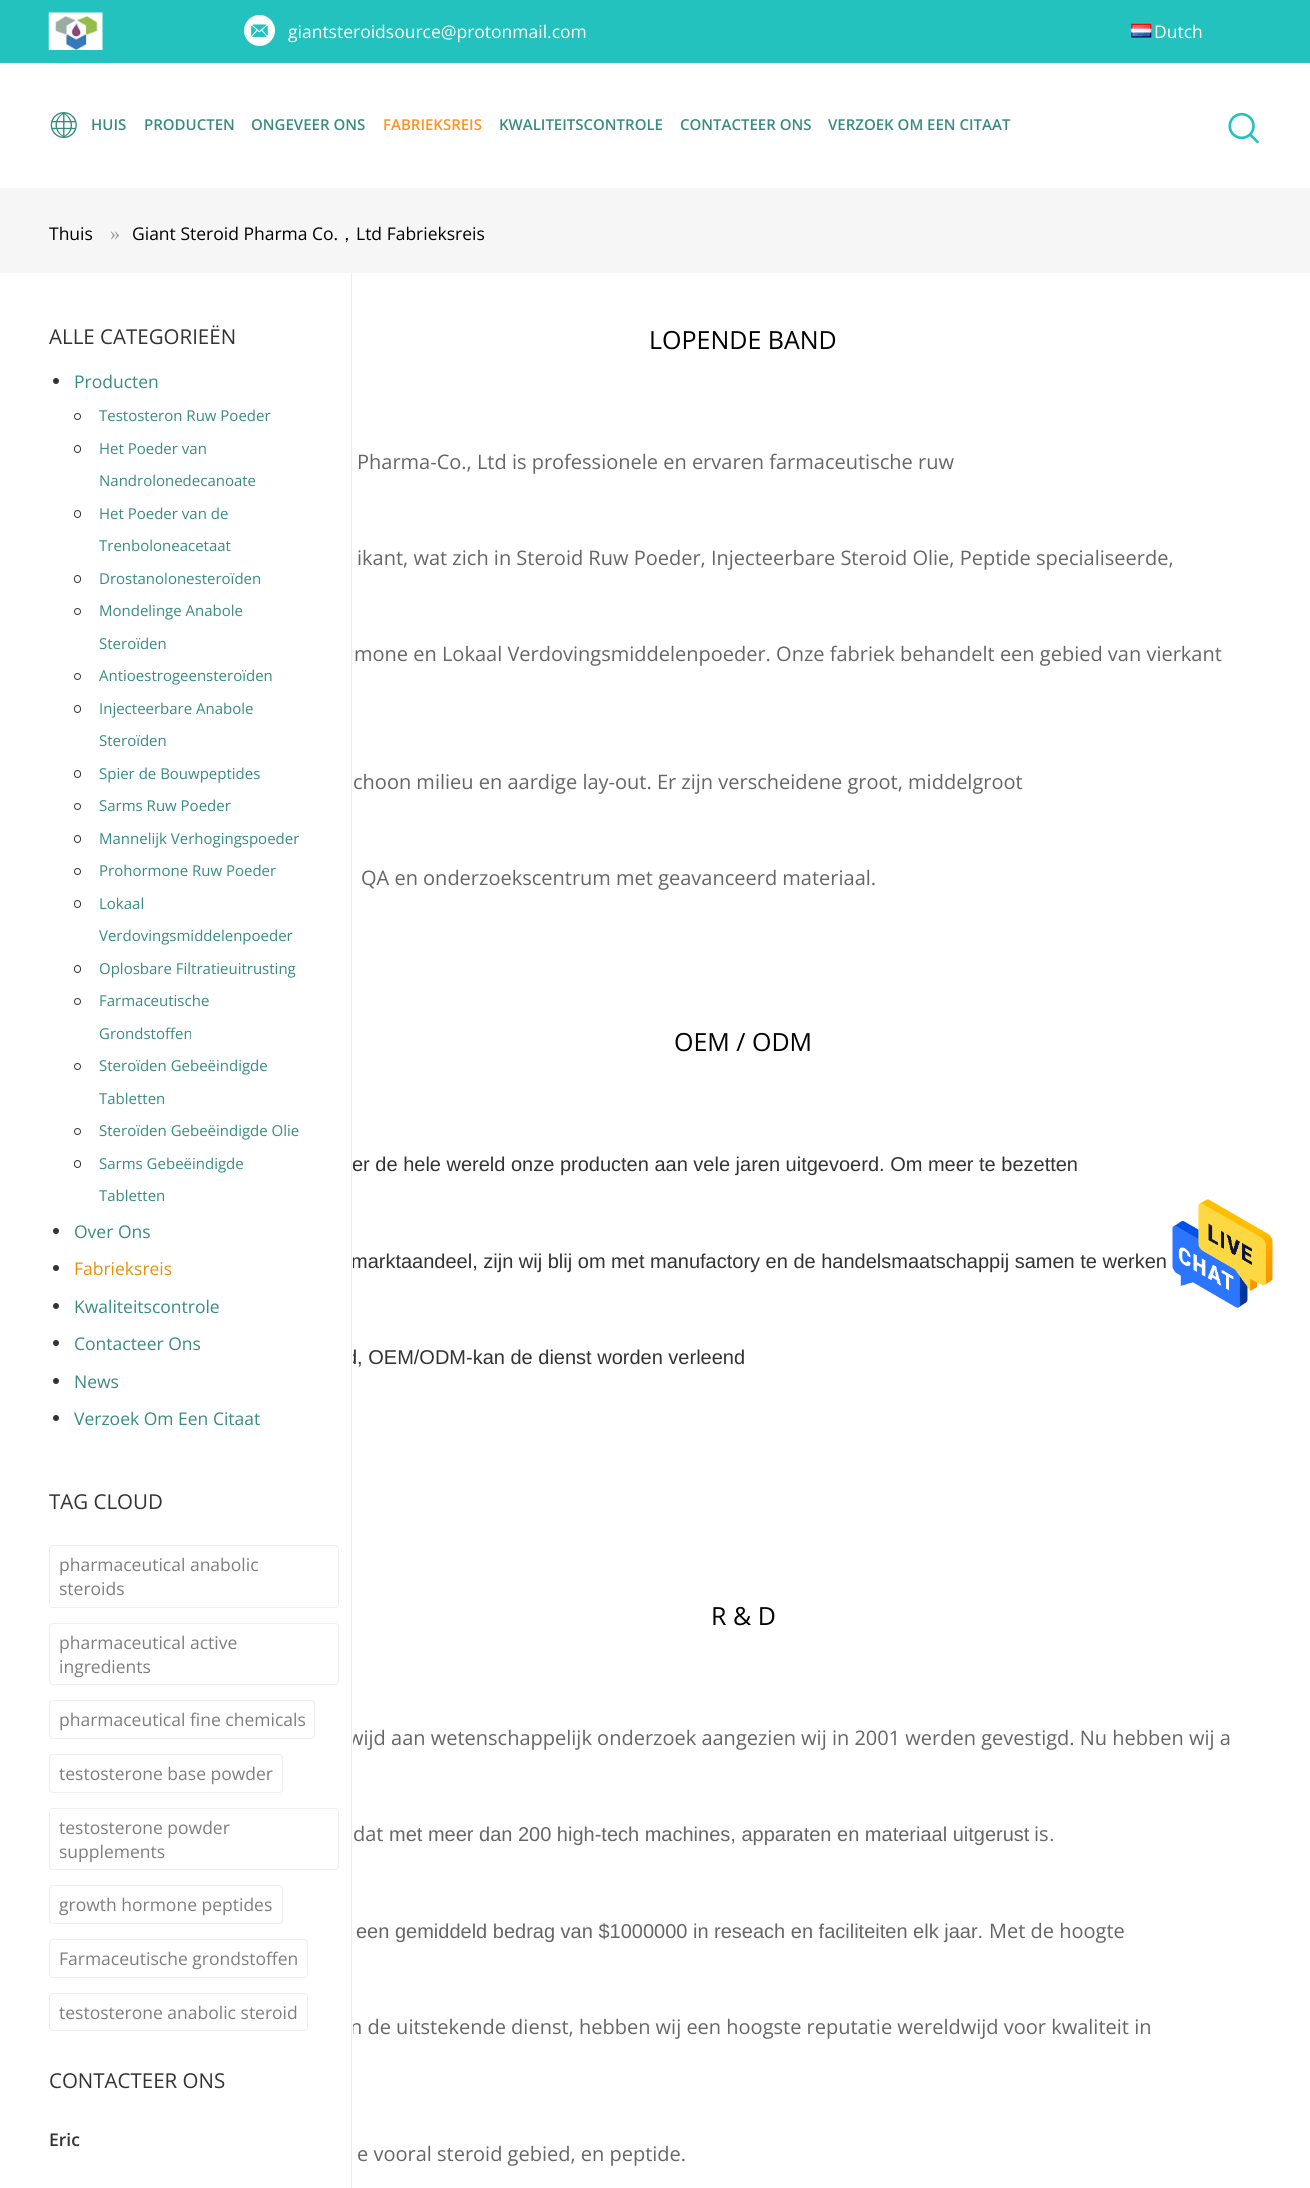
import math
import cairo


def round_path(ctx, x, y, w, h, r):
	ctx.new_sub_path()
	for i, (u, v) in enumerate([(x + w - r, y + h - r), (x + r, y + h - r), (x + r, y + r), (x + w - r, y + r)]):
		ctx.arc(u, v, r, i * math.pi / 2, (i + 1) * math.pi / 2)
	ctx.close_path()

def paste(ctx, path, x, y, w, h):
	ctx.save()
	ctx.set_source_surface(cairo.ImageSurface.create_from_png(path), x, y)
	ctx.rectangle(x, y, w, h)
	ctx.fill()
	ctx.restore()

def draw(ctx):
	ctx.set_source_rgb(1, 1, 1)
	ctx.paint()
	ctx.set_source_rgb(0.137, 0.761, 0.745)
	ctx.rectangle(0, 0, 1310, 63)
	ctx.fill()
	paste(ctx, 'media/1.png', 48, 12, 55, 38)
	ctx.set_source_rgb(1, 1, 1)
	ctx.arc(259.5, 30.5, 15.5, 0, 2 * math.pi)
	ctx.fill()
	paste(ctx, 'media/2.png', 251, 24, 17, 13)
	ctx.select_font_face('Open Sans')
	ctx.set_font_size(17.5)
	ctx.move_to(288, 38)
	ctx.show_text('giantsteroidsource@protonmail.com')
	paste(ctx, 'media/3.png', 1131, 23, 21, 15)
	ctx.move_to(1154, 38)
	ctx.show_text('Dutch')
	paste(ctx, 'media/4.png', 50, 112, 27, 27)
	ctx.select_font_face('Open Sans SemiBold')
	ctx.set_font_size(15)
	ctx.set_source_rgb(0.224, 0.545, 0.506)
	for x, y, s in [
		(91, 130, 'HUIS'),
		(144, 130, 'PRODUCTEN'),
		(251, 130, 'ONGEVEER ONS'),
	]:
		ctx.move_to(x, y)
		ctx.show_text(s)
	ctx.set_source_rgb(1, 0.569, 0.129)
	ctx.move_to(383, 130)
	ctx.show_text('FABRIEKSREIS')
	ctx.set_source_rgb(0.224, 0.545, 0.506)
	for x, y, s in [
		(499, 130, 'KWALITEITSCONTROLE'),
		(680, 130, 'CONTACTEER ONS'),
		(828, 130, 'VERZOEK OM EEN CITAAT'),
	]:
		ctx.move_to(x, y)
		ctx.show_text(s)
	paste(ctx, 'media/5.png', 1228, 112, 31, 32)
	ctx.set_source_rgb(0.961, 0.961, 0.961)
	ctx.rectangle(0, 188, 1310, 85)
	ctx.fill()
	ctx.select_font_face('Open Sans')
	ctx.set_font_size(17.5)
	ctx.set_source_rgb(0, 0, 0)
	ctx.move_to(49, 240)
	ctx.show_text('Thuis')
	ctx.select_font_face('Liberation Serif')
	ctx.set_font_size(20)
	ctx.set_source_rgb(0.6, 0.6, 0.6)
	ctx.move_to(110, 240)
	ctx.show_text('»')
	ctx.select_font_face('Open Sans')
	ctx.set_font_size(17.5)
	ctx.set_source_rgb(0, 0, 0)
	ctx.move_to(132, 240)
	ctx.show_text('Giant Steroid Pharma Co.')
	ctx.select_font_face('WenQuanYi Zen Hei Medium')
	ctx.move_to(338, 240)
	ctx.show_text('，')
	ctx.select_font_face('Open Sans')
	ctx.move_to(356, 240)
	ctx.show_text('Ltd Fabrieksreis')
	ctx.set_source_rgb(0.933, 0.933, 0.933)
	ctx.rectangle(351, 273, 1, 1915)
	ctx.fill()
	ctx.set_font_size(20.5)
	ctx.set_source_rgb(0.2, 0.2, 0.2)
	ctx.move_to(49, 344)
	ctx.show_text('ALLE CATEGORIEËN')
	ctx.new_path()
	ctx.arc(56, 381, 3, 0, 2 * math.pi)
	ctx.fill()
	ctx.set_font_size(17.5)
	ctx.set_source_rgb(0.224, 0.545, 0.506)
	ctx.move_to(74, 388)
	ctx.show_text('Producten')
	ctx.new_path()
	ctx.arc(77.5, 416.5, 3, 0, 2 * math.pi)
	ctx.set_source_rgb(0.2, 0.2, 0.2)
	ctx.set_line_width(1)
	ctx.stroke()
	ctx.set_font_size(15)
	ctx.set_source_rgb(0.224, 0.545, 0.506)
	ctx.move_to(99, 421)
	ctx.show_text('Testosteron Ruw Poeder')
	round_path(ctx, 74.5, 445.5, 6, 7, 3)
	ctx.set_source_rgb(0.2, 0.2, 0.2)
	ctx.stroke()
	ctx.set_source_rgb(0.224, 0.545, 0.506)
	ctx.move_to(99, 454)
	ctx.show_text('Het Poeder van')
	ctx.move_to(99, 486)
	ctx.show_text('Nandrolonedecanoate')
	round_path(ctx, 74.5, 510.5, 6, 7, 3)
	ctx.set_source_rgb(0.2, 0.2, 0.2)
	ctx.stroke()
	ctx.set_source_rgb(0.224, 0.545, 0.506)
	ctx.move_to(99, 519)
	ctx.show_text('Het Poeder van de')
	ctx.move_to(99, 551)
	ctx.show_text('Trenboloneacetaat')
	round_path(ctx, 74.5, 575.5, 6, 7, 3)
	ctx.set_source_rgb(0.2, 0.2, 0.2)
	ctx.stroke()
	ctx.set_source_rgb(0.224, 0.545, 0.506)
	ctx.move_to(99, 584)
	ctx.show_text('Drostanolonesteroïden')
	ctx.new_path()
	ctx.arc(77.5, 611.5, 3, 0, 2 * math.pi)
	ctx.set_source_rgb(0.2, 0.2, 0.2)
	ctx.stroke()
	ctx.set_source_rgb(0.224, 0.545, 0.506)
	ctx.move_to(99, 616)
	ctx.show_text('Mondelinge Anabole')
	ctx.move_to(99, 649)
	ctx.show_text('Steroïden')
	ctx.new_path()
	ctx.arc(77.5, 676.5, 3, 0, 2 * math.pi)
	ctx.set_source_rgb(0.2, 0.2, 0.2)
	ctx.stroke()
	ctx.set_source_rgb(0.224, 0.545, 0.506)
	ctx.move_to(99, 681)
	ctx.show_text('Antioestrogeensteroïden')
	round_path(ctx, 74.5, 705.5, 6, 7, 3)
	ctx.set_source_rgb(0.2, 0.2, 0.2)
	ctx.stroke()
	ctx.set_source_rgb(0.224, 0.545, 0.506)
	ctx.move_to(99, 714)
	ctx.show_text('Injecteerbare Anabole')
	ctx.move_to(99, 746)
	ctx.show_text('Steroïden')
	round_path(ctx, 74.5, 770.5, 6, 7, 3)
	ctx.set_source_rgb(0.2, 0.2, 0.2)
	ctx.stroke()
	ctx.set_source_rgb(0.224, 0.545, 0.506)
	ctx.move_to(99, 779)
	ctx.show_text('Spier de Bouwpeptides')
	ctx.new_path()
	ctx.arc(77.5, 806.5, 3, 0, 2 * math.pi)
	ctx.set_source_rgb(0.2, 0.2, 0.2)
	ctx.stroke()
	ctx.set_source_rgb(0.224, 0.545, 0.506)
	ctx.move_to(99, 811)
	ctx.show_text('Sarms Ruw Poeder')
	round_path(ctx, 74.5, 835.5, 6, 7, 3)
	ctx.set_source_rgb(0.2, 0.2, 0.2)
	ctx.stroke()
	ctx.set_source_rgb(0.224, 0.545, 0.506)
	ctx.move_to(99, 844)
	ctx.show_text('Mannelijk Verhogingspoeder')
	ctx.new_path()
	ctx.arc(77.5, 871.5, 3, 0, 2 * math.pi)
	ctx.set_source_rgb(0.2, 0.2, 0.2)
	ctx.stroke()
	ctx.set_source_rgb(0.224, 0.545, 0.506)
	ctx.move_to(99, 876)
	ctx.show_text('Prohormone Ruw Poeder')
	round_path(ctx, 74.5, 900.5, 6, 7, 3)
	ctx.set_source_rgb(0.2, 0.2, 0.2)
	ctx.stroke()
	ctx.set_source_rgb(0.224, 0.545, 0.506)
	ctx.move_to(99, 909)
	ctx.show_text('Lokaal')
	ctx.move_to(99, 941)
	ctx.show_text('Verdovingsmiddelenpoeder')
	round_path(ctx, 74.5, 965.5, 6, 7, 3)
	ctx.set_source_rgb(0.2, 0.2, 0.2)
	ctx.stroke()
	ctx.set_source_rgb(0.224, 0.545, 0.506)
	ctx.move_to(99, 974)
	ctx.show_text('Oplosbare Filtratieuitrusting')
	ctx.new_path()
	ctx.arc(77.5, 1001.5, 3, 0, 2 * math.pi)
	ctx.set_source_rgb(0.2, 0.2, 0.2)
	ctx.stroke()
	ctx.set_source_rgb(0.224, 0.545, 0.506)
	ctx.move_to(99, 1006)
	ctx.show_text('Farmaceutische')
	ctx.move_to(99, 1039)
	ctx.show_text('Grondstoffen')
	ctx.new_path()
	ctx.arc(77.5, 1066.5, 3, 0, 2 * math.pi)
	ctx.set_source_rgb(0.2, 0.2, 0.2)
	ctx.stroke()
	ctx.set_source_rgb(0.224, 0.545, 0.506)
	ctx.move_to(99, 1071)
	ctx.show_text('Steroïden Gebeëindigde')
	ctx.move_to(99, 1104)
	ctx.show_text('Tabletten')
	ctx.new_path()
	ctx.arc(77.5, 1131.5, 3, 0, 2 * math.pi)
	ctx.set_source_rgb(0.2, 0.2, 0.2)
	ctx.stroke()
	ctx.set_source_rgb(0.224, 0.545, 0.506)
	ctx.move_to(99, 1136)
	ctx.show_text('Steroïden Gebeëindigde Olie')
	round_path(ctx, 74.5, 1160.5, 6, 7, 3)
	ctx.set_source_rgb(0.2, 0.2, 0.2)
	ctx.stroke()
	ctx.set_source_rgb(0.224, 0.545, 0.506)
	ctx.move_to(99, 1169)
	ctx.show_text('Sarms Gebeëindigde')
	ctx.move_to(99, 1201)
	ctx.show_text('Tabletten')
	ctx.set_source_rgb(0.2, 0.2, 0.2)
	ctx.new_path()
	ctx.arc(56, 1231, 3, 0, 2 * math.pi)
	ctx.fill()
	ctx.set_font_size(17.5)
	ctx.set_source_rgb(0.224, 0.545, 0.506)
	ctx.move_to(74, 1238)
	ctx.show_text('Over Ons')
	ctx.set_source_rgb(0.2, 0.2, 0.2)
	ctx.new_path()
	ctx.arc(56, 1268, 3, 0, 2 * math.pi)
	ctx.fill()
	ctx.set_source_rgb(0.925, 0.565, 0.035)
	ctx.move_to(74, 1275)
	ctx.show_text('Fabrieksreis')
	ctx.set_source_rgb(0.2, 0.2, 0.2)
	ctx.new_path()
	ctx.arc(56, 1306, 3, 0, 2 * math.pi)
	ctx.fill()
	ctx.set_source_rgb(0.224, 0.545, 0.506)
	ctx.move_to(74, 1313)
	ctx.show_text('Kwaliteitscontrole')
	ctx.set_source_rgb(0.2, 0.2, 0.2)
	ctx.new_path()
	ctx.arc(56, 1343, 3, 0, 2 * math.pi)
	ctx.fill()
	ctx.set_source_rgb(0.224, 0.545, 0.506)
	ctx.move_to(74, 1350)
	ctx.show_text('Contacteer Ons')
	ctx.set_source_rgb(0.2, 0.2, 0.2)
	ctx.new_path()
	ctx.arc(56, 1381, 3, 0, 2 * math.pi)
	ctx.fill()
	ctx.set_source_rgb(0.224, 0.545, 0.506)
	ctx.move_to(74, 1388)
	ctx.show_text('News')
	ctx.set_source_rgb(0.2, 0.2, 0.2)
	ctx.new_path()
	ctx.arc(56, 1418, 3, 0, 2 * math.pi)
	ctx.fill()
	ctx.set_source_rgb(0.224, 0.545, 0.506)
	ctx.move_to(74, 1425)
	ctx.show_text('Verzoek Om Een Citaat')
	ctx.set_font_size(20.5)
	ctx.set_source_rgb(0.2, 0.2, 0.2)
	ctx.move_to(49, 1509)
	ctx.show_text('TAG CLOUD')
	round_path(ctx, 49.5, 1545.5, 289, 62, 3.5)
	ctx.set_source_rgb(0.933, 0.933, 0.933)
	ctx.stroke()
	ctx.set_font_size(17.5)
	ctx.set_source_rgb(0.502, 0.49, 0.49)
	ctx.move_to(59, 1571)
	ctx.show_text('pharmaceutical anabolic')
	ctx.move_to(59, 1595)
	ctx.show_text('steroids')
	round_path(ctx, 49.5, 1623.5, 289, 61, 3.5)
	ctx.set_source_rgb(0.933, 0.933, 0.933)
	ctx.stroke()
	ctx.set_source_rgb(0.502, 0.49, 0.49)
	ctx.move_to(59, 1649)
	ctx.show_text('pharmaceutical active')
	ctx.move_to(59, 1673)
	ctx.show_text('ingredients')
	round_path(ctx, 49.5, 1700.5, 265, 38, 3.5)
	ctx.set_source_rgb(0.933, 0.933, 0.933)
	ctx.stroke()
	ctx.set_source_rgb(0.502, 0.49, 0.49)
	ctx.move_to(59, 1726)
	ctx.show_text('pharmaceutical fine chemicals')
	round_path(ctx, 49.5, 1754.5, 233, 38, 3.5)
	ctx.set_source_rgb(0.933, 0.933, 0.933)
	ctx.stroke()
	ctx.set_source_rgb(0.502, 0.49, 0.49)
	ctx.move_to(59, 1780)
	ctx.show_text('testosterone base powder')
	round_path(ctx, 49.5, 1808.5, 289, 61, 3.5)
	ctx.set_source_rgb(0.933, 0.933, 0.933)
	ctx.stroke()
	ctx.set_source_rgb(0.502, 0.49, 0.49)
	ctx.move_to(59, 1834)
	ctx.show_text('testosterone powder')
	ctx.move_to(59, 1858)
	ctx.show_text('supplements')
	round_path(ctx, 49.5, 1885.5, 233, 38, 3.5)
	ctx.set_source_rgb(0.933, 0.933, 0.933)
	ctx.stroke()
	ctx.set_source_rgb(0.502, 0.49, 0.49)
	ctx.move_to(59, 1911)
	ctx.show_text('growth hormone peptides')
	round_path(ctx, 49.5, 1939.5, 258, 38, 3.5)
	ctx.set_source_rgb(0.933, 0.933, 0.933)
	ctx.stroke()
	ctx.set_source_rgb(0.502, 0.49, 0.49)
	ctx.move_to(59, 1965)
	ctx.show_text('Farmaceutische grondstoffen')
	round_path(ctx, 49.5, 1993.5, 258, 37, 3.5)
	ctx.set_source_rgb(0.933, 0.933, 0.933)
	ctx.stroke()
	ctx.set_source_rgb(0.502, 0.49, 0.49)
	ctx.move_to(59, 2019)
	ctx.show_text('testosterone anabolic steroid')
	ctx.set_font_size(20.5)
	ctx.set_source_rgb(0.2, 0.2, 0.2)
	ctx.move_to(49, 2088)
	ctx.show_text('CONTACTEER ONS')
	ctx.select_font_face('Open Sans SemiBold')
	ctx.set_font_size(17.5)
	ctx.move_to(49, 2146)
	ctx.show_text('Eric')
	ctx.select_font_face('Open Sans')
	ctx.set_font_size(25)
	ctx.set_source_rgb(0, 0, 0)
	ctx.move_to(649, 349)
	ctx.show_text('LOPENDE BAND')
	ctx.set_font_size(20)
	ctx.set_source_rgb(0.4, 0.4, 0.4)
	for x, y, s in [
		(357, 469, 'Pharma-Co., Ltd is professionele en ervaren farmaceutische ruw'),
		(357, 565, 'ikant, wat zich in Steroid Ruw Poeder, Injecteerbare Steroid Olie, Peptide specialiseerde,'),
		(354, 661, 'mone en Lokaal Verdovingsmiddelenpoeder. Onze fabriek behandelt een gebied van vierkant'),
		(353, 789, 'choon milieu en aardige lay-out. Er zijn verscheidene groot, middelgroot'),
		(361, 885, 'QA en onderzoekscentrum met geavanceerd materiaal.'),
	]:
		ctx.move_to(x, y)
		ctx.show_text(s)
	ctx.set_font_size(25)
	ctx.set_source_rgb(0, 0, 0)
	ctx.move_to(674, 1051)
	ctx.show_text('OEM / ODM')
	ctx.save()
	ctx.rectangle(353, 273, 908, 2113)
	ctx.clip()
	ctx.select_font_face('Liberation Sans')
	ctx.set_font_size(20)
	ctx.set_source_rgb(0.2, 0.2, 0.2)
	for x, y, s in [
		(352, 1171, 'er de hele wereld onze producten aan vele jaren uitgevoerd. Om meer te bezetten'),
		(351, 1268, 'marktaandeel, zijn wij blij om met manufactory en de handelsmaatschappij samen te werken'),
		(346, 1364, 'd, OEM/ODM-kan de dienst worden verleend'),
	]:
		ctx.move_to(x, y)
		ctx.show_text(s)
	ctx.restore()
	ctx.move_to(711, 1625)
	ctx.show_text('R & D')
	ctx.save()
	ctx.rectangle(353, 273, 908, 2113)
	ctx.clip()
	ctx.set_font_size(20)
	ctx.set_source_rgb(0.4, 0.4, 0.4)
	ctx.move_to(348, 1745)
	ctx.show_text('wijd aan wetenschappelijk onderzoek aangezien wij in 2001 werden gevestigd. Nu hebben wij a')
	ctx.restore()
	ctx.set_font_size(20)
	ctx.set_source_rgb(0.4, 0.4, 0.4)
	ctx.move_to(353, 1841)
	ctx.show_text('dat')
	ctx.select_font_face('Liberation Sans')
	ctx.move_to(389, 1841)
	ctx.show_text('met meer dan 200 high-tech machines, apparaten en materiaal uitgerust')
	ctx.select_font_face('Open Sans')
	ctx.move_to(1034, 1841)
	ctx.show_text('is')
	ctx.select_font_face('Liberation Sans')
	ctx.move_to(1049, 1841)
	ctx.show_text('.')
	ctx.move_to(356, 1938)
	ctx.show_text('een gemiddeld bedrag van $1000000 in reseach en faciliteiten elk jaar.')
	ctx.select_font_face('Open Sans')
	ctx.move_to(989, 1938)
	ctx.show_text('Met de hoogte')
	ctx.save()
	ctx.rectangle(353, 273, 908, 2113)
	ctx.clip()
	ctx.move_to(350, 2034)
	ctx.show_text('n de uitstekende dienst, hebben wij een hoogste reputatie wereldwijd voor kwaliteit in')
	ctx.restore()
	ctx.move_to(357, 2161)
	ctx.show_text('e vooral steroid gebied, en peptide.')
	paste(ctx, 'media/6.png', 1172, 1199, 101, 109)


surface = cairo.ImageSurface(cairo.FORMAT_RGB24, 1310, 2188)
ctx = cairo.Context(surface)
options = cairo.FontOptions()
options.set_hint_metrics(cairo.HINT_METRICS_OFF)
options.set_hint_style(cairo.HINT_STYLE_NONE)
ctx.set_font_options(options)
ctx.set_miter_limit(4)
draw(ctx)
surface.write_to_png('image.png')
